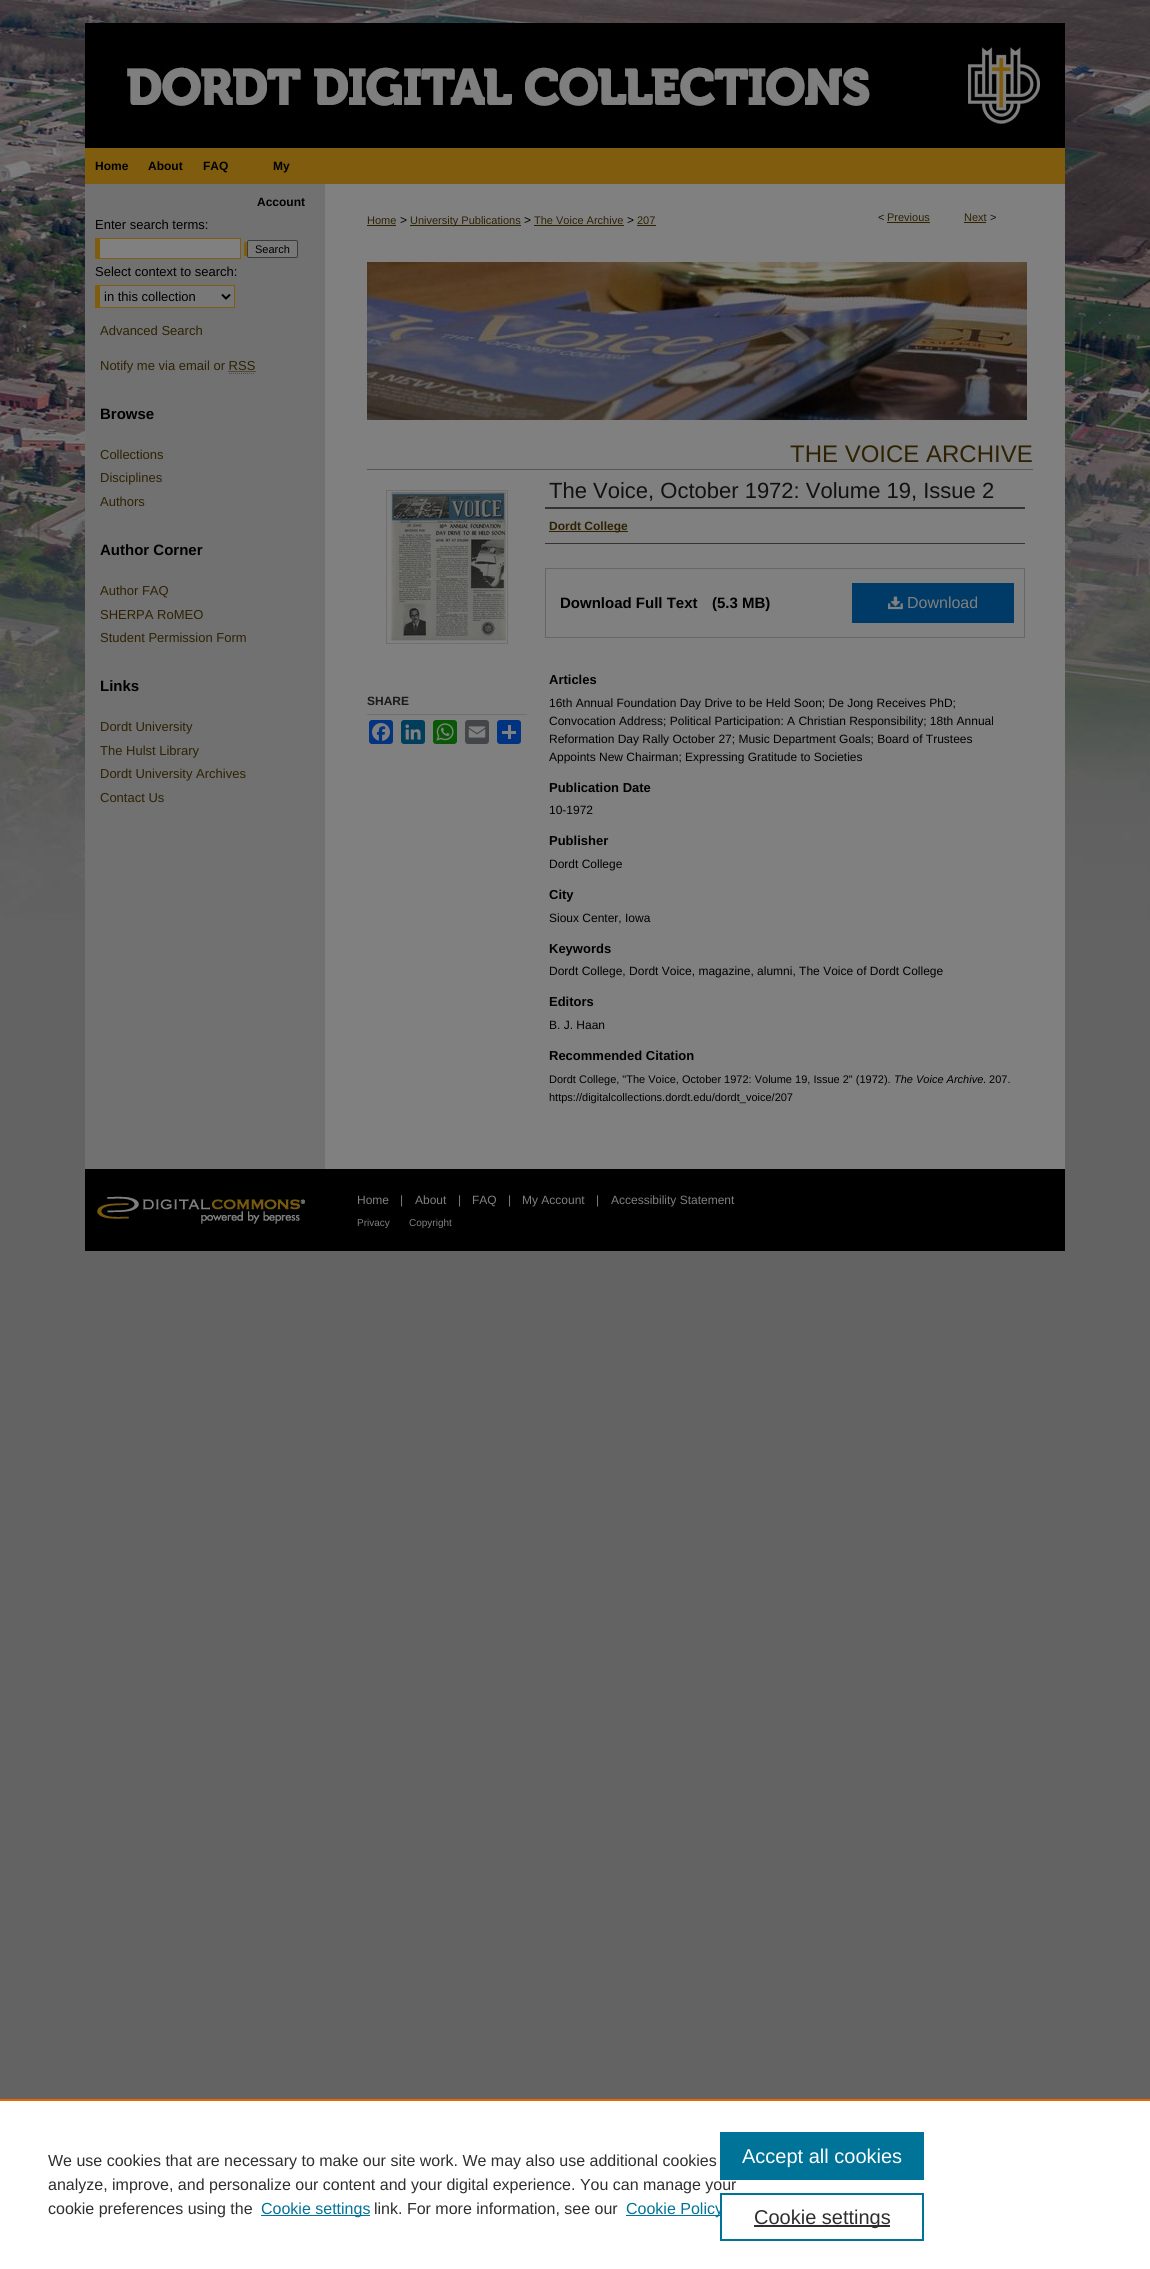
import math
import cairo


def round_path(ctx, x, y, w, h, r):
	ctx.new_sub_path()
	for i, (u, v) in enumerate([(x + w - r, y + h - r), (x + r, y + h - r), (x + r, y + r), (x + w - r, y + r)]):
		ctx.arc(u, v, r, i * math.pi / 2, (i + 1) * math.pi / 2)
	ctx.close_path()

def paste(ctx, path, x, y, w, h):
	ctx.save()
	ctx.set_source_surface(cairo.ImageSurface.create_from_png(path), x, y)
	ctx.rectangle(x, y, w, h)
	ctx.fill()
	ctx.restore()

def draw(ctx):
	ctx.set_source_rgb(0.388, 0.388, 0.388)
	ctx.paint()
	paste(ctx, 'media/1.png', 0, 0, 1150, 920)
	ctx.set_source_rgb(0, 0, 0)
	ctx.rectangle(85, 23, 980, 125)
	ctx.fill()
	paste(ctx, 'media/2.png', 125, 47, 916, 80)
	ctx.set_source_rgb(0.502, 0.361, 0.055)
	ctx.rectangle(85, 148, 980, 36)
	ctx.fill()
	ctx.select_font_face('Liberation Sans', cairo.FONT_SLANT_NORMAL, cairo.FONT_WEIGHT_BOLD)
	ctx.set_font_size(12)
	ctx.set_source_rgb(0, 0, 0)
	for x, y, s in [
		(95, 170, 'Home'),
		(148, 170, 'About'),
		(203, 170, 'FAQ'),
		(273, 170, 'My'),
	]:
		ctx.move_to(x, y)
		ctx.show_text(s)
	ctx.set_source_rgb(0.443, 0.443, 0.443)
	ctx.rectangle(85, 184, 240, 985)
	ctx.fill()
	ctx.set_source_rgb(0, 0, 0)
	ctx.move_to(257, 206)
	ctx.show_text('Account')
	ctx.set_source_rgb(0.502, 0.502, 0.502)
	ctx.rectangle(325, 184, 740, 985)
	ctx.fill()
	ctx.select_font_face('Liberation Sans')
	ctx.set_font_size(13)
	ctx.set_source_rgb(0, 0, 0)
	ctx.move_to(95, 229)
	ctx.show_text('Enter search terms:')
	ctx.set_source_rgb(0.502, 0.361, 0.055)
	ctx.rectangle(95, 238, 146, 21)
	ctx.rectangle(244, 242, 3, 14)
	ctx.fill()
	ctx.set_source_rgb(0.502, 0.502, 0.502)
	ctx.rectangle(100, 239, 140, 19)
	ctx.fill()
	ctx.set_source_rgb(0.471, 0.471, 0.471)
	round_path(ctx, 247.5, 240.5, 50, 17, 1.5)
	ctx.fill_preserve()
	ctx.set_source_rgb(0.231, 0.231, 0.231)
	ctx.set_line_width(1)
	ctx.stroke()
	ctx.set_font_size(11)
	ctx.set_source_rgb(0, 0, 0)
	ctx.move_to(255, 253)
	ctx.show_text('Search')
	ctx.set_font_size(13)
	ctx.move_to(95, 276)
	ctx.show_text('Select context to search:')
	ctx.set_source_rgb(0.471, 0.471, 0.471)
	ctx.rectangle(100, 286, 134, 21)
	ctx.fill()
	ctx.set_source_rgb(0.502, 0.361, 0.055)
	ctx.rectangle(95, 285, 140, 1)
	ctx.rectangle(234, 285, 1, 23)
	ctx.rectangle(95, 307, 140, 1)
	ctx.rectangle(95, 285, 5, 23)
	ctx.fill()
	ctx.new_path()
	ctx.move_to(222, 294.5)
	ctx.line_to(226, 298.5)
	ctx.line_to(230, 294.5)
	ctx.set_source_rgb(0, 0, 0)
	ctx.set_line_width(2)
	ctx.stroke()
	ctx.move_to(104, 301)
	ctx.show_text('in this collection')
	ctx.set_source_rgb(0.18, 0.133, 0.012)
	ctx.move_to(100, 335)
	ctx.show_text('Advanced Search')
	ctx.move_to(100, 370)
	ctx.show_text('Notify me via email or RSS')
	ctx.new_path()
	ctx.move_to(228.5, 371.5)
	ctx.line_to(255.5, 371.5)
	ctx.set_line_width(1)
	ctx.set_dash([1, 1])
	ctx.stroke()
	ctx.new_path()
	ctx.move_to(229, 373.5)
	ctx.line_to(255, 373.5)
	ctx.set_source_rgb(0.302, 0.302, 0.302)
	ctx.stroke()
	ctx.select_font_face('Liberation Sans', cairo.FONT_SLANT_NORMAL, cairo.FONT_WEIGHT_BOLD)
	ctx.set_font_size(15)
	ctx.set_source_rgb(0, 0, 0)
	ctx.move_to(100, 419)
	ctx.show_text('Browse')
	ctx.select_font_face('Liberation Sans')
	ctx.set_font_size(13)
	ctx.set_source_rgb(0.18, 0.133, 0.012)
	for x, y, s in [
		(100, 459, 'Collections'),
		(100, 482, 'Disciplines'),
		(100, 506, 'Authors'),
	]:
		ctx.move_to(x, y)
		ctx.show_text(s)
	ctx.select_font_face('Liberation Sans', cairo.FONT_SLANT_NORMAL, cairo.FONT_WEIGHT_BOLD)
	ctx.set_font_size(15)
	ctx.set_source_rgb(0, 0, 0)
	ctx.move_to(100, 555)
	ctx.show_text('Author Corner')
	ctx.select_font_face('Liberation Sans')
	ctx.set_font_size(13)
	ctx.set_source_rgb(0.18, 0.133, 0.012)
	for x, y, s in [
		(100, 595, 'Author FAQ'),
		(100, 619, 'SHERPA RoMEO'),
		(100, 642, 'Student Permission Form'),
	]:
		ctx.move_to(x, y)
		ctx.show_text(s)
	ctx.select_font_face('Liberation Sans', cairo.FONT_SLANT_NORMAL, cairo.FONT_WEIGHT_BOLD)
	ctx.set_font_size(15)
	ctx.set_source_rgb(0, 0, 0)
	ctx.move_to(100, 691)
	ctx.show_text('Links')
	ctx.select_font_face('Liberation Sans')
	ctx.set_font_size(13)
	ctx.set_source_rgb(0.18, 0.133, 0.012)
	for x, y, s in [
		(100, 731, 'Dordt University'),
		(100, 755, 'The Hulst Library'),
		(100, 778, 'Dordt University Archives'),
		(100, 802, 'Contact Us'),
	]:
		ctx.move_to(x, y)
		ctx.show_text(s)
	ctx.set_font_size(11)
	ctx.move_to(367, 224)
	ctx.show_text('Home')
	ctx.rectangle(367, 225, 29, 1)
	ctx.fill()
	ctx.set_font_size(12)
	ctx.set_source_rgb(0, 0, 0)
	ctx.move_to(400, 224)
	ctx.show_text('>')
	ctx.set_source_rgb(0.18, 0.133, 0.012)
	ctx.rectangle(410, 225, 111, 1)
	ctx.fill()
	ctx.set_font_size(11)
	ctx.move_to(410, 224)
	ctx.show_text('University Publications')
	ctx.set_font_size(12)
	ctx.set_source_rgb(0, 0, 0)
	ctx.move_to(524, 224)
	ctx.show_text('>')
	ctx.set_font_size(11)
	ctx.set_source_rgb(0.18, 0.133, 0.012)
	ctx.move_to(534, 224)
	ctx.show_text('The Voice Archive')
	ctx.rectangle(534, 225, 90, 1)
	ctx.fill()
	ctx.set_font_size(12)
	ctx.set_source_rgb(0, 0, 0)
	ctx.move_to(627, 224)
	ctx.show_text('>')
	ctx.set_font_size(11)
	ctx.set_source_rgb(0.18, 0.133, 0.012)
	ctx.move_to(637, 224)
	ctx.show_text('207')
	ctx.rectangle(637, 225, 19, 1)
	ctx.fill()
	ctx.set_source_rgb(0.067, 0.067, 0.067)
	ctx.move_to(878, 221)
	ctx.show_text('<')
	ctx.set_source_rgb(0.18, 0.133, 0.012)
	ctx.move_to(887, 221)
	ctx.show_text('Previous')
	ctx.rectangle(887, 222, 43, 1)
	ctx.fill()
	ctx.move_to(964, 221)
	ctx.show_text('Next')
	ctx.rectangle(964, 222, 22, 1)
	ctx.fill()
	ctx.set_source_rgb(0.067, 0.067, 0.067)
	ctx.move_to(990, 221)
	ctx.show_text('>')
	paste(ctx, 'media/3.png', 367, 262, 660, 158)
	ctx.set_font_size(24)
	ctx.set_source_rgb(0.18, 0.133, 0.012)
	ctx.move_to(790, 462)
	ctx.show_text('THE VOICE ARCHIVE')
	ctx.rectangle(386.5, 490.5, 121, 153)
	ctx.set_source_rgb(0.435, 0.435, 0.435)
	ctx.set_dash([])
	ctx.stroke()
	paste(ctx, 'media/4.png', 388, 492, 118, 150)
	ctx.rectangle(367, 714, 160, 1)
	ctx.fill()
	ctx.select_font_face('Liberation Sans', cairo.FONT_SLANT_NORMAL, cairo.FONT_WEIGHT_BOLD)
	ctx.set_font_size(12)
	ctx.set_source_rgb(0.102, 0.102, 0.102)
	ctx.move_to(367, 705)
	ctx.show_text('SHARE')
	ctx.set_source_rgb(0.016, 0.2, 0.502)
	round_path(ctx, 369, 720, 24, 24, 3)
	ctx.fill()
	paste(ctx, 'media/5.png', 372, 723, 18, 18)
	ctx.set_source_rgb(0, 0.243, 0.357)
	round_path(ctx, 401, 720, 24, 24, 3)
	ctx.fill()
	paste(ctx, 'media/6.png', 405, 724, 16, 16)
	ctx.set_source_rgb(0.035, 0.345, 0.02)
	round_path(ctx, 433, 720, 24, 24, 3)
	ctx.fill()
	paste(ctx, 'media/7.png', 436, 723, 18, 18)
	ctx.set_source_rgb(0.267, 0.271, 0.282)
	round_path(ctx, 465, 720, 24, 24, 3)
	ctx.fill()
	paste(ctx, 'media/8.png', 468, 726, 18, 12)
	ctx.set_source_rgb(0.004, 0.2, 0.502)
	round_path(ctx, 497, 720, 24, 24, 3)
	ctx.fill()
	ctx.set_source_rgb(0.502, 0.502, 0.502)
	ctx.rectangle(508, 725, 3, 14)
	ctx.rectangle(502, 731, 14, 3)
	ctx.fill()
	ctx.set_source_rgb(0.333, 0.333, 0.333)
	ctx.rectangle(367, 469, 666, 1)
	ctx.fill()
	ctx.select_font_face('Liberation Sans')
	ctx.set_font_size(22)
	ctx.set_source_rgb(0.067, 0.067, 0.067)
	ctx.move_to(549, 498)
	ctx.show_text('The Voice, October 1972: Volume 19, Issue 2')
	ctx.set_source_rgb(0.2, 0.2, 0.2)
	ctx.rectangle(545, 507, 480, 2)
	ctx.rectangle(545, 543, 480, 1)
	ctx.fill()
	ctx.set_source_rgb(0.18, 0.133, 0.012)
	ctx.rectangle(549, 531, 79, 1)
	ctx.fill()
	ctx.select_font_face('Liberation Sans', cairo.FONT_SLANT_NORMAL, cairo.FONT_WEIGHT_BOLD)
	ctx.set_font_size(12)
	ctx.move_to(549, 530)
	ctx.show_text('Dordt College')
	ctx.rectangle(545.5, 568.5, 479, 69)
	ctx.set_source_rgb(0.4, 0.4, 0.4)
	ctx.stroke()
	ctx.set_font_size(15)
	ctx.set_source_rgb(0, 0, 0)
	ctx.move_to(560, 608)
	ctx.show_text('Download Full Text')
	ctx.move_to(712, 608)
	ctx.show_text('(5.3 MB)')
	ctx.set_source_rgb(0, 0.227, 0.4)
	ctx.rectangle(852, 583, 162, 40)
	ctx.fill()
	paste(ctx, 'media/9.png', 888, 596, 15, 14)
	ctx.select_font_face('Liberation Sans')
	ctx.set_font_size(16)
	ctx.set_source_rgb(0.502, 0.502, 0.502)
	ctx.move_to(907, 608)
	ctx.show_text('Download')
	ctx.select_font_face('Liberation Sans', cairo.FONT_SLANT_NORMAL, cairo.FONT_WEIGHT_BOLD)
	ctx.set_font_size(13)
	ctx.set_source_rgb(0, 0, 0)
	ctx.move_to(549, 684)
	ctx.show_text('Articles')
	ctx.select_font_face('Liberation Sans')
	ctx.set_font_size(12)
	for x, y, s in [
		(549, 707, '16th Annual Foundation Day Drive to be Held Soon; De Jong Receives PhD;'),
		(549, 725, 'Convocation Address; Political Participation: A Christian Responsibility; 18th Annual'),
		(549, 743, 'Reformation Day Rally October 27; Music Department Goals; Board of Trustees'),
		(549, 761, 'Appoints New Chairman; Expressing Gratitude to Societies'),
	]:
		ctx.move_to(x, y)
		ctx.show_text(s)
	ctx.select_font_face('Liberation Sans', cairo.FONT_SLANT_NORMAL, cairo.FONT_WEIGHT_BOLD)
	ctx.set_font_size(13)
	ctx.move_to(549, 792)
	ctx.show_text('Publication Date')
	ctx.select_font_face('Liberation Sans')
	ctx.set_font_size(12)
	ctx.move_to(549, 814)
	ctx.show_text('10-1972')
	ctx.select_font_face('Liberation Sans', cairo.FONT_SLANT_NORMAL, cairo.FONT_WEIGHT_BOLD)
	ctx.set_font_size(13)
	ctx.move_to(549, 845)
	ctx.show_text('Publisher')
	ctx.select_font_face('Liberation Sans')
	ctx.set_font_size(12)
	ctx.move_to(549, 868)
	ctx.show_text('Dordt College')
	ctx.select_font_face('Liberation Sans', cairo.FONT_SLANT_NORMAL, cairo.FONT_WEIGHT_BOLD)
	ctx.set_font_size(13)
	ctx.move_to(549, 899)
	ctx.show_text('City')
	ctx.select_font_face('Liberation Sans')
	ctx.set_font_size(12)
	ctx.move_to(549, 922)
	ctx.show_text('Sioux Center, Iowa')
	ctx.select_font_face('Liberation Sans', cairo.FONT_SLANT_NORMAL, cairo.FONT_WEIGHT_BOLD)
	ctx.set_font_size(13)
	ctx.move_to(549, 953)
	ctx.show_text('Keywords')
	ctx.select_font_face('Liberation Sans')
	ctx.set_font_size(12)
	ctx.move_to(549, 975)
	ctx.show_text('Dordt College, Dordt Voice, magazine, alumni, The Voice of Dordt College')
	ctx.select_font_face('Liberation Sans', cairo.FONT_SLANT_NORMAL, cairo.FONT_WEIGHT_BOLD)
	ctx.set_font_size(13)
	ctx.move_to(549, 1006)
	ctx.show_text('Editors')
	ctx.select_font_face('Liberation Sans')
	ctx.set_font_size(12)
	ctx.move_to(549, 1029)
	ctx.show_text('B. J. Haan')
	ctx.select_font_face('Liberation Sans', cairo.FONT_SLANT_NORMAL, cairo.FONT_WEIGHT_BOLD)
	ctx.set_font_size(13)
	ctx.move_to(549, 1060)
	ctx.show_text('Recommended Citation')
	ctx.select_font_face('Liberation Sans')
	ctx.set_font_size(11)
	ctx.move_to(549, 1083)
	ctx.show_text('Dordt College, "The Voice, October 1972: Volume 19, Issue 2" (1972).')
	ctx.select_font_face('Liberation Sans', cairo.FONT_SLANT_ITALIC)
	ctx.move_to(894, 1083)
	ctx.show_text('The Voice Archive')
	ctx.select_font_face('Liberation Sans')
	ctx.move_to(983, 1083)
	ctx.show_text('. 207.')
	ctx.move_to(549, 1101)
	ctx.show_text('https://digitalcollections.dordt.edu/dordt_voice/207')
	ctx.rectangle(85, 1169, 980, 82)
	ctx.fill()
	paste(ctx, 'media/10.png', 97, 1196, 208, 28)
	ctx.set_font_size(12)
	ctx.set_source_rgb(0.502, 0.502, 0.502)
	for x, y, s in [
		(357, 1204, 'Home'),
		(400, 1204, '|'),
		(415, 1204, 'About'),
		(458, 1204, '|'),
		(472, 1204, 'FAQ'),
		(508, 1204, '|'),
		(522, 1204, 'My Account'),
		(596, 1204, '|'),
		(611, 1204, 'Accessibility Statement'),
	]:
		ctx.move_to(x, y)
		ctx.show_text(s)
	ctx.set_font_size(10)
	ctx.move_to(357, 1226)
	ctx.show_text('Privacy')
	ctx.move_to(409, 1226)
	ctx.show_text('Copyright')
	ctx.set_source_rgb(1, 1, 1)
	ctx.rectangle(0, 2101, 1150, 168)
	ctx.fill()
	ctx.set_source_rgb(0.922, 0.396, 0)
	ctx.rectangle(0, 2099, 1150, 2)
	ctx.fill()
	ctx.set_font_size(16)
	ctx.set_source_rgb(0.18, 0.18, 0.18)
	for x, y, s in [
		(48, 2166, 'We use cookies that are necessary to make our site work. We may also use additional cookies'),
		(48, 2190, 'analyze, improve, and personalize our content and your digital experience. You can manage your'),
		(48, 2214, 'cookie preferences using the'),
	]:
		ctx.move_to(x, y)
		ctx.show_text(s)
	ctx.set_source_rgb(0, 0.451, 0.596)
	ctx.rectangle(261, 2215, 109, 1)
	ctx.fill()
	ctx.move_to(261, 2214)
	ctx.show_text('Cookie settings')
	ctx.set_source_rgb(0.18, 0.18, 0.18)
	ctx.move_to(374, 2214)
	ctx.show_text('link. For more information, see our')
	ctx.set_source_rgb(0, 0.451, 0.596)
	ctx.rectangle(626, 2215, 97, 1)
	ctx.fill()
	ctx.move_to(626, 2214)
	ctx.show_text('Cookie Policy')
	ctx.rectangle(720, 2132, 204, 48)
	ctx.fill()
	ctx.set_font_size(20)
	ctx.set_source_rgb(1, 1, 1)
	ctx.move_to(742, 2163)
	ctx.show_text('Accept all cookies')
	ctx.rectangle(722, 2205, 1, 11)
	ctx.fill()
	ctx.rectangle(721, 2194, 202, 46)
	ctx.set_source_rgb(0, 0.451, 0.596)
	ctx.set_line_width(2)
	ctx.stroke()
	ctx.set_source_rgb(0.18, 0.18, 0.18)
	ctx.rectangle(754, 2225, 136, 2)
	ctx.fill()
	ctx.move_to(754, 2224)
	ctx.show_text('Cookie settings')


surface = cairo.ImageSurface(cairo.FORMAT_RGB24, 1150, 2269)
ctx = cairo.Context(surface)
options = cairo.FontOptions()
options.set_hint_metrics(cairo.HINT_METRICS_OFF)
options.set_hint_style(cairo.HINT_STYLE_NONE)
ctx.set_font_options(options)
ctx.set_miter_limit(4)
draw(ctx)
surface.write_to_png('image.png')
